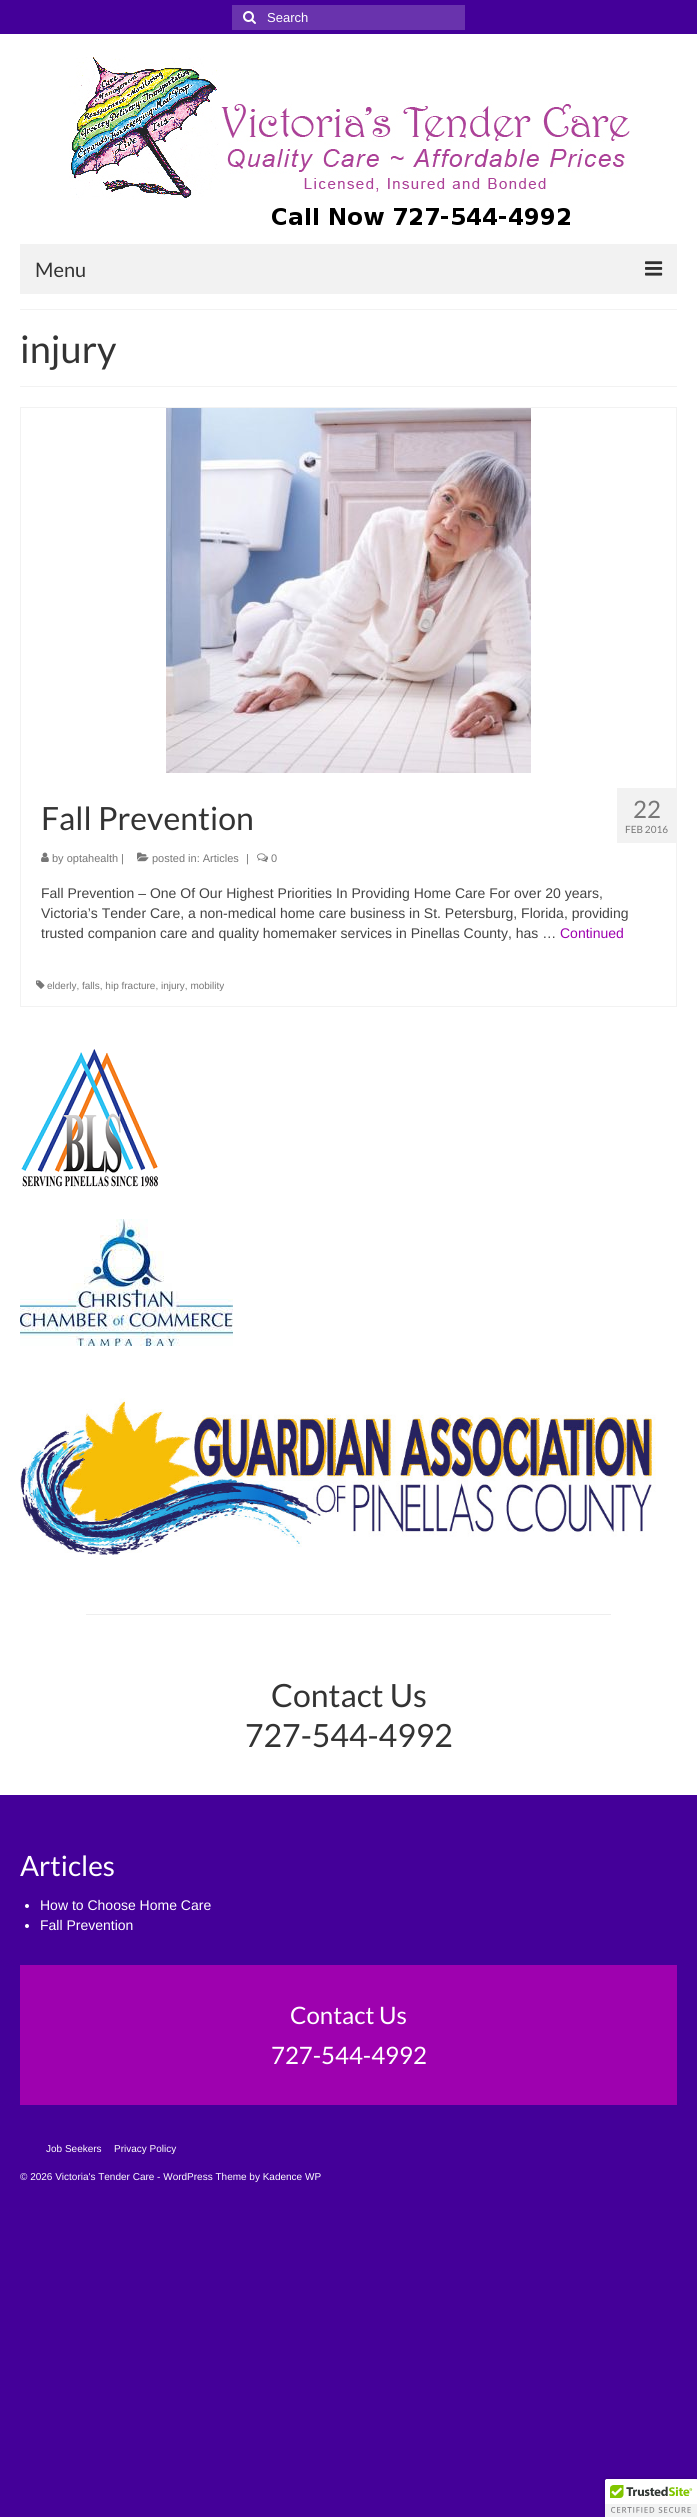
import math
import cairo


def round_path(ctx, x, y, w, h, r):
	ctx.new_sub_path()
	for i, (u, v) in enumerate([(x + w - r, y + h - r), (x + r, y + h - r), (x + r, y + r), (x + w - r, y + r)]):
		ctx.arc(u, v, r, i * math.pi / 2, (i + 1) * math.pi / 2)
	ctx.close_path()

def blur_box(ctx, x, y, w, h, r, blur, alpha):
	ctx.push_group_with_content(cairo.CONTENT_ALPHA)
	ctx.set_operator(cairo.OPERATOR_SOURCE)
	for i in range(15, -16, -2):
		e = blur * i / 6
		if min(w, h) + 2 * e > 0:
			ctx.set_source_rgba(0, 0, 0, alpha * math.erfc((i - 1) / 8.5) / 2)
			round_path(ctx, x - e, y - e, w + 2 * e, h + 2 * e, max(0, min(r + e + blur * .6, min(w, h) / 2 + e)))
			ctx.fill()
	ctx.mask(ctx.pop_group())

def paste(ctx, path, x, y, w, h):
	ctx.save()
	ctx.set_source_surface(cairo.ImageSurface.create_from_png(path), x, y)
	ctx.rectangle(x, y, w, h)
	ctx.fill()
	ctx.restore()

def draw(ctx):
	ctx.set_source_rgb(0.267, 0, 0.6)
	ctx.paint()
	ctx.set_source_rgb(1, 1, 1)
	ctx.rectangle(0, 34, 697, 1761)
	ctx.fill()
	ctx.set_source_rgb(0.412, 0.2, 0.678)
	ctx.rectangle(232, 5, 233, 25)
	ctx.fill()
	paste(ctx, 'media/1.png', 243, 11, 13, 13)
	ctx.select_font_face('Liberation Sans')
	ctx.set_font_size(13)
	ctx.set_source_rgb(1, 1, 1)
	ctx.move_to(267, 22)
	ctx.show_text('Search')
	paste(ctx, 'media/2.png', 69, 57, 561, 168)
	ctx.set_source_rgb(0.949, 0.949, 0.949)
	ctx.rectangle(20, 244, 657, 50)
	ctx.fill()
	ctx.select_font_face('Lato')
	ctx.set_font_size(20)
	ctx.set_source_rgb(0.2, 0.2, 0.2)
	ctx.move_to(35, 277)
	ctx.show_text('Menu')
	paste(ctx, 'media/3.png', 645, 261, 18, 15)
	ctx.set_source_rgb(0.949, 0.949, 0.949)
	ctx.rectangle(20, 309, 657, 1)
	ctx.fill()
	ctx.rectangle(20, 386, 657, 1)
	ctx.fill()
	ctx.set_font_size(38)
	ctx.set_source_rgb(0.2, 0.2, 0.2)
	ctx.move_to(20, 363)
	ctx.show_text('injury')
	ctx.rectangle(20.5, 407.5, 656, 599)
	ctx.set_source_rgb(0.949, 0.949, 0.949)
	ctx.set_line_width(1)
	ctx.stroke()
	paste(ctx, 'media/4.png', 166, 408, 365, 365)
	ctx.set_font_size(32)
	ctx.set_source_rgb(0.2, 0.2, 0.2)
	ctx.move_to(41, 830)
	ctx.show_text('Fall Prevention')
	paste(ctx, 'media/5.png', 41, 852, 8, 10)
	ctx.select_font_face('Liberation Sans')
	ctx.set_font_size(11)
	ctx.set_source_rgb(0.467, 0.467, 0.467)
	ctx.move_to(52, 862)
	ctx.show_text('by optahealth |')
	paste(ctx, 'media/6.png', 137, 852, 12, 10)
	ctx.move_to(152, 862)
	ctx.show_text('posted in: Articles')
	ctx.move_to(246, 862)
	ctx.show_text('|')
	paste(ctx, 'media/7.png', 257, 853, 11, 9)
	ctx.move_to(271, 862)
	ctx.show_text('0')
	ctx.set_source_rgb(0.949, 0.949, 0.949)
	ctx.rectangle(617, 788, 59, 55)
	ctx.fill()
	ctx.select_font_face('Lato')
	ctx.set_font_size(24)
	ctx.set_source_rgb(0.467, 0.467, 0.467)
	ctx.move_to(633, 818)
	ctx.show_text('22')
	ctx.set_font_size(10)
	ctx.move_to(625, 833)
	ctx.show_text('FEB 2016')
	ctx.select_font_face('Liberation Sans')
	ctx.set_font_size(14)
	ctx.set_source_rgb(0.267, 0.267, 0.267)
	for x, y, s in [
		(41, 898, 'Fall Prevention – One Of Our Highest Priorities In Providing Home Care For over 20 years,'),
		(41, 918, 'Victoria’s Tender Care, a non-medical home care business in St. Petersburg, Florida, providing'),
		(41, 938, 'trusted companion care and quality homemaker services in Pinellas County, has …'),
	]:
		ctx.move_to(x, y)
		ctx.show_text(s)
	ctx.set_source_rgb(0.62, 0.004, 0.686)
	ctx.move_to(560, 938)
	ctx.show_text('Continued')
	paste(ctx, 'media/8.png', 36, 980, 9, 9)
	ctx.set_font_size(10)
	ctx.set_source_rgb(0.467, 0.467, 0.467)
	ctx.move_to(47, 989)
	ctx.show_text('elderly, falls, hip fracture, injury, mobility')
	paste(ctx, 'media/9.png', 21, 1049, 137, 138)
	paste(ctx, 'media/10.png', 20, 1219, 213, 127)
	paste(ctx, 'media/11.png', 20, 1398, 636, 157)
	ctx.set_source_rgb(0.933, 0.933, 0.933)
	ctx.rectangle(86, 1614, 525, 1)
	ctx.fill()
	ctx.select_font_face('Lato')
	ctx.set_font_size(32)
	ctx.set_source_rgb(0.2, 0.2, 0.2)
	ctx.move_to(271, 1707)
	ctx.show_text('Contact Us')
	ctx.move_to(245, 1747)
	ctx.show_text('727-544-4992')
	ctx.set_font_size(28)
	ctx.set_source_rgb(1, 1, 1)
	ctx.move_to(20, 1876)
	ctx.show_text('Articles')
	ctx.new_path()
	ctx.arc(27, 1906, 2, 0, 2 * math.pi)
	ctx.fill()
	ctx.select_font_face('Liberation Sans')
	ctx.set_font_size(14)
	ctx.move_to(40, 1910)
	ctx.show_text('How to Choose Home Care')
	ctx.new_path()
	ctx.arc(27, 1926, 2, 0, 2 * math.pi)
	ctx.fill()
	ctx.move_to(40, 1930)
	ctx.show_text('Fall Prevention')
	ctx.set_source_rgb(0.62, 0.004, 0.686)
	ctx.rectangle(20, 1965, 657, 140)
	ctx.fill()
	ctx.select_font_face('Lato')
	ctx.set_font_size(24)
	ctx.set_source_rgb(1, 1, 1)
	ctx.move_to(290, 2024)
	ctx.show_text('Contact Us')
	ctx.move_to(271, 2064)
	ctx.show_text('727-544-4992')
	ctx.select_font_face('Liberation Sans')
	ctx.set_font_size(10)
	for x, y, s in [
		(46, 2152, 'Job Seekers'),
		(114, 2152, 'Privacy Policy'),
		(20, 2180, '© 2026 Victoria\'s Tender Care - WordPress Theme by Kadence WP'),
	]:
		ctx.move_to(x, y)
		ctx.show_text(s)
	ctx.set_source_rgb(0, 0, 0)
	blur_box(ctx, 605, 2479, 92, 38, 2, 2.5, 0.2)
	ctx.set_source_rgb(1, 1, 1)
	ctx.new_path()
	ctx.move_to(607, 2479)
	ctx.line_to(697, 2479)
	ctx.line_to(697, 2517)
	ctx.line_to(605, 2517)
	ctx.line_to(605, 2481)
	ctx.curve_to(605, 2480, 606, 2479, 607, 2479)
	ctx.close_path()
	ctx.fill()
	paste(ctx, 'media/12.png', 605, 2479, 92, 38)


surface = cairo.ImageSurface(cairo.FORMAT_RGB24, 697, 2517)
ctx = cairo.Context(surface)
options = cairo.FontOptions()
options.set_hint_metrics(cairo.HINT_METRICS_OFF)
options.set_hint_style(cairo.HINT_STYLE_NONE)
ctx.set_font_options(options)
ctx.set_miter_limit(4)
draw(ctx)
surface.write_to_png('image.png')
